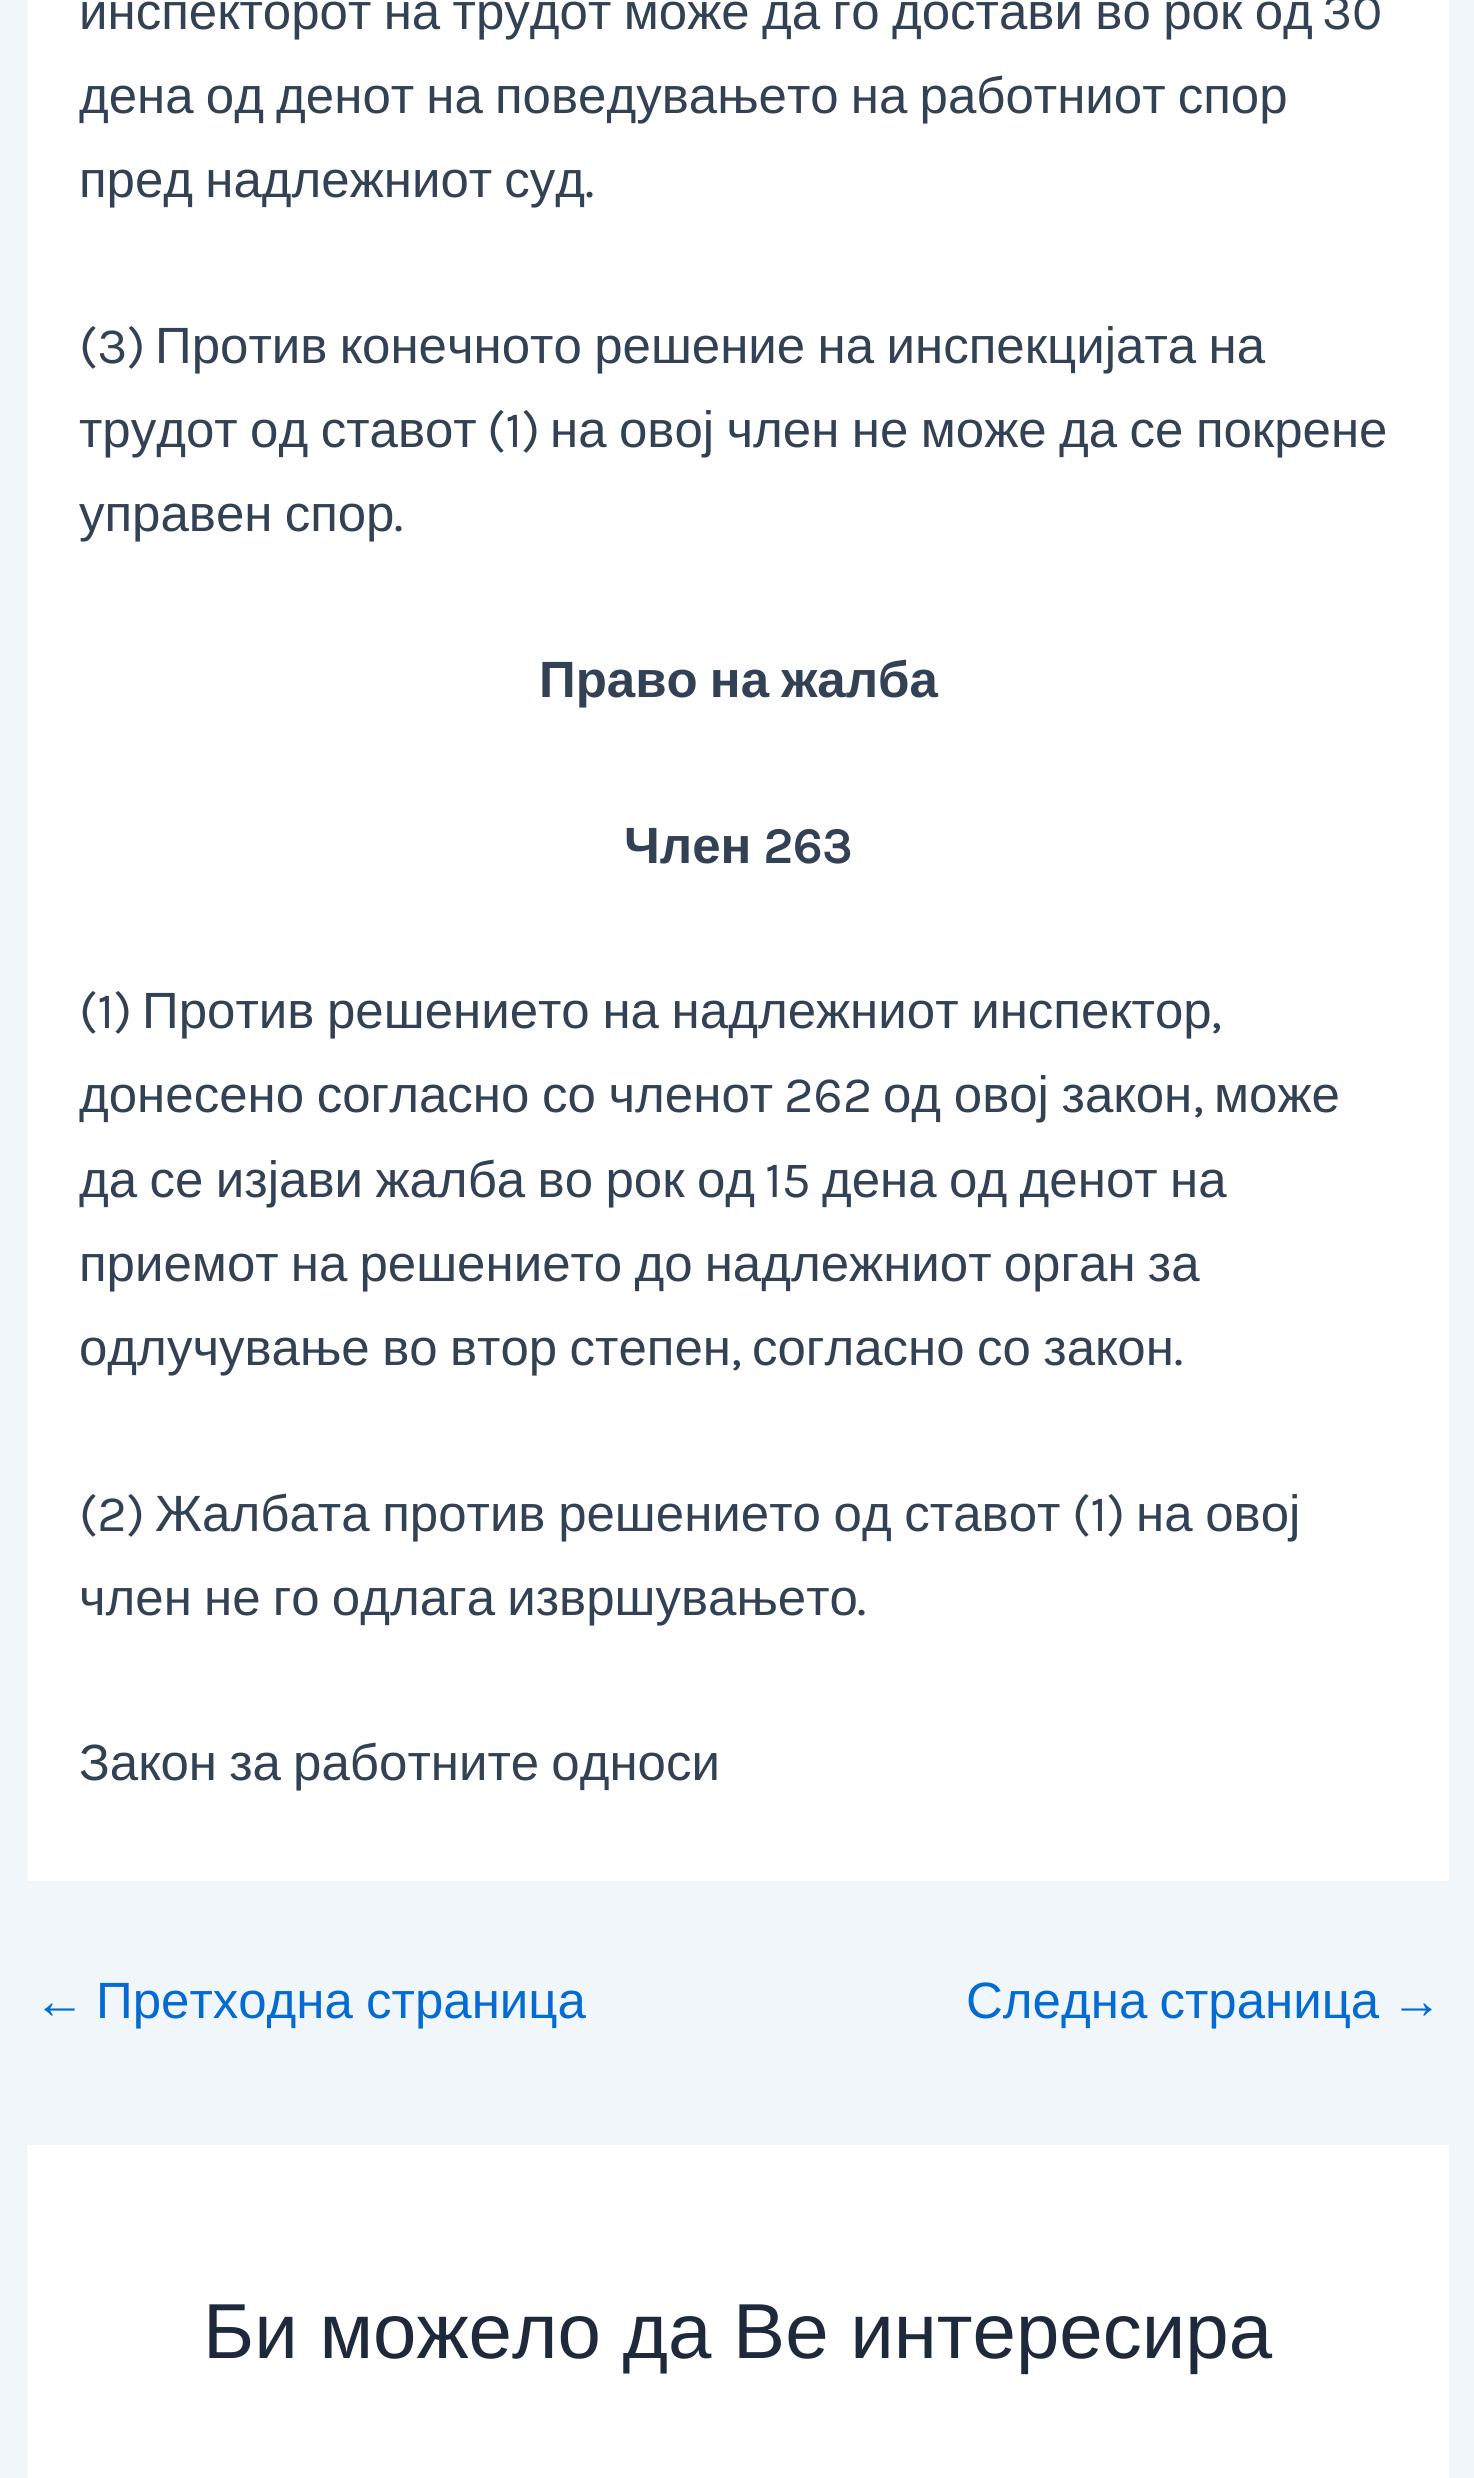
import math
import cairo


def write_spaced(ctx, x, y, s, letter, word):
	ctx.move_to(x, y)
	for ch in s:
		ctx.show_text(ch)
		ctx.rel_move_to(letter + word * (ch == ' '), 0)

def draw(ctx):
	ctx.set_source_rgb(0.941, 0.961, 0.98)
	ctx.paint()
	ctx.set_source_rgb(1, 1, 1)
	ctx.rectangle(27, 0, 1422, 1881)
	ctx.fill()
	ctx.select_font_face('Liberation Sans')
	ctx.set_font_size(51)
	ctx.set_source_rgb(0.2, 0.255, 0.333)
	write_spaced(ctx, 79, 29, 'инспекторот на трудот може да го достави во рок од', 0, -1.75)
	ctx.select_font_face('Karla')
	ctx.move_to(1322, 29)
	ctx.show_text('30')
	ctx.select_font_face('Liberation Sans')
	write_spaced(ctx, 79, 113, 'дена од денот на поведувањето на работниот спор', 0, -2)
	write_spaced(ctx, 79, 197, 'пред надлежниот суд', 0, -2)
	ctx.select_font_face('Karla')
	ctx.move_to(585, 197)
	ctx.show_text('.')
	ctx.move_to(79, 363)
	ctx.show_text('(3)')
	ctx.select_font_face('Liberation Sans')
	write_spaced(ctx, 155, 363, 'Против конечното решение на инспекцијата на', 0, -1.75)
	write_spaced(ctx, 79, 447, 'трудот од ставот', 0, -1.75)
	ctx.select_font_face('Karla')
	ctx.move_to(487, 447)
	ctx.show_text('(1)')
	ctx.select_font_face('Liberation Sans')
	write_spaced(ctx, 550, 447, 'на овој член не може да се покрене', 0, -1.75)
	write_spaced(ctx, 79, 531, 'управен спор', 0, -2)
	ctx.select_font_face('Karla')
	ctx.move_to(394, 531)
	ctx.show_text('.')
	ctx.select_font_face('Liberation Sans', cairo.FONT_SLANT_NORMAL, cairo.FONT_WEIGHT_BOLD)
	write_spaced(ctx, 539, 697, 'Право на жалба', 0, -2)
	ctx.move_to(624, 863)
	ctx.show_text('Член')
	ctx.select_font_face('Karla', cairo.FONT_SLANT_NORMAL, cairo.FONT_WEIGHT_BOLD)
	ctx.move_to(763, 863)
	ctx.show_text('263')
	ctx.select_font_face('Karla')
	ctx.move_to(79, 1028)
	ctx.show_text('(1)')
	ctx.select_font_face('Liberation Sans')
	write_spaced(ctx, 142, 1028, 'Против решението на надлежниот инспектор', 0, -1.5)
	ctx.select_font_face('Karla')
	ctx.move_to(1211, 1028)
	ctx.show_text(',')
	ctx.select_font_face('Liberation Sans')
	write_spaced(ctx, 79, 1112, 'донесено согласно со членот', 0, -1.5)
	ctx.select_font_face('Karla')
	ctx.move_to(784, 1112)
	ctx.show_text('262')
	ctx.select_font_face('Liberation Sans')
	write_spaced(ctx, 883, 1112, 'од овој закон', 0, -1.5)
	ctx.select_font_face('Karla')
	ctx.move_to(1193, 1112)
	ctx.show_text(',')
	ctx.select_font_face('Liberation Sans')
	ctx.move_to(1214, 1112)
	ctx.show_text('може')
	write_spaced(ctx, 79, 1197, 'да се изјави жалба во рок од', 0, -1.75)
	ctx.select_font_face('Karla')
	ctx.move_to(765, 1197)
	ctx.show_text('15')
	ctx.select_font_face('Liberation Sans')
	write_spaced(ctx, 822, 1197, 'дена од денот на', 0, -1.75)
	write_spaced(ctx, 79, 1281, 'приемот на решението до надлежниот орган за', 0, -2)
	write_spaced(ctx, 79, 1365, 'одлучување во втор степен', 0, -1.75)
	ctx.select_font_face('Karla')
	ctx.move_to(731, 1365)
	ctx.show_text(',')
	ctx.select_font_face('Liberation Sans')
	write_spaced(ctx, 752, 1365, 'согласно со закон', 0, -1.75)
	ctx.select_font_face('Karla')
	ctx.move_to(1174, 1365)
	ctx.show_text('.')
	ctx.move_to(79, 1531)
	ctx.show_text('(2)')
	ctx.select_font_face('Liberation Sans')
	write_spaced(ctx, 155, 1531, 'Жалбата против решението од ставот', 0, -1.5)
	ctx.select_font_face('Karla')
	ctx.move_to(1072, 1531)
	ctx.show_text('(1)')
	ctx.select_font_face('Liberation Sans')
	write_spaced(ctx, 1136, 1531, 'на овој', 0, -1.5)
	write_spaced(ctx, 79, 1615, 'член не го одлага извршувањето', 0, -2)
	ctx.select_font_face('Karla')
	ctx.move_to(857, 1615)
	ctx.show_text('.')
	ctx.select_font_face('Liberation Sans')
	write_spaced(ctx, 79, 1780, 'Закон за работните односи', 0, -2)
	ctx.set_source_rgb(0.016, 0.42, 0.824)
	ctx.move_to(34, 2018)
	ctx.show_text('←')
	write_spaced(ctx, 96, 2018, 'Претходна страница', 0, -1)
	write_spaced(ctx, 966, 2018, 'Следна страница', 0, -2)
	ctx.move_to(1391, 2018)
	ctx.show_text('→')
	ctx.set_source_rgb(1, 1, 1)
	ctx.rectangle(27, 2145, 1422, 333)
	ctx.fill()
	ctx.set_font_size(78)
	ctx.set_source_rgb(0.118, 0.161, 0.231)
	ctx.move_to(203, 2358)
	ctx.show_text('Би можело да Ве интересира')


surface = cairo.ImageSurface(cairo.FORMAT_RGB24, 1474, 2478)
ctx = cairo.Context(surface)
options = cairo.FontOptions()
options.set_hint_metrics(cairo.HINT_METRICS_OFF)
options.set_hint_style(cairo.HINT_STYLE_NONE)
ctx.set_font_options(options)
ctx.set_miter_limit(4)
draw(ctx)
surface.write_to_png('image.png')
